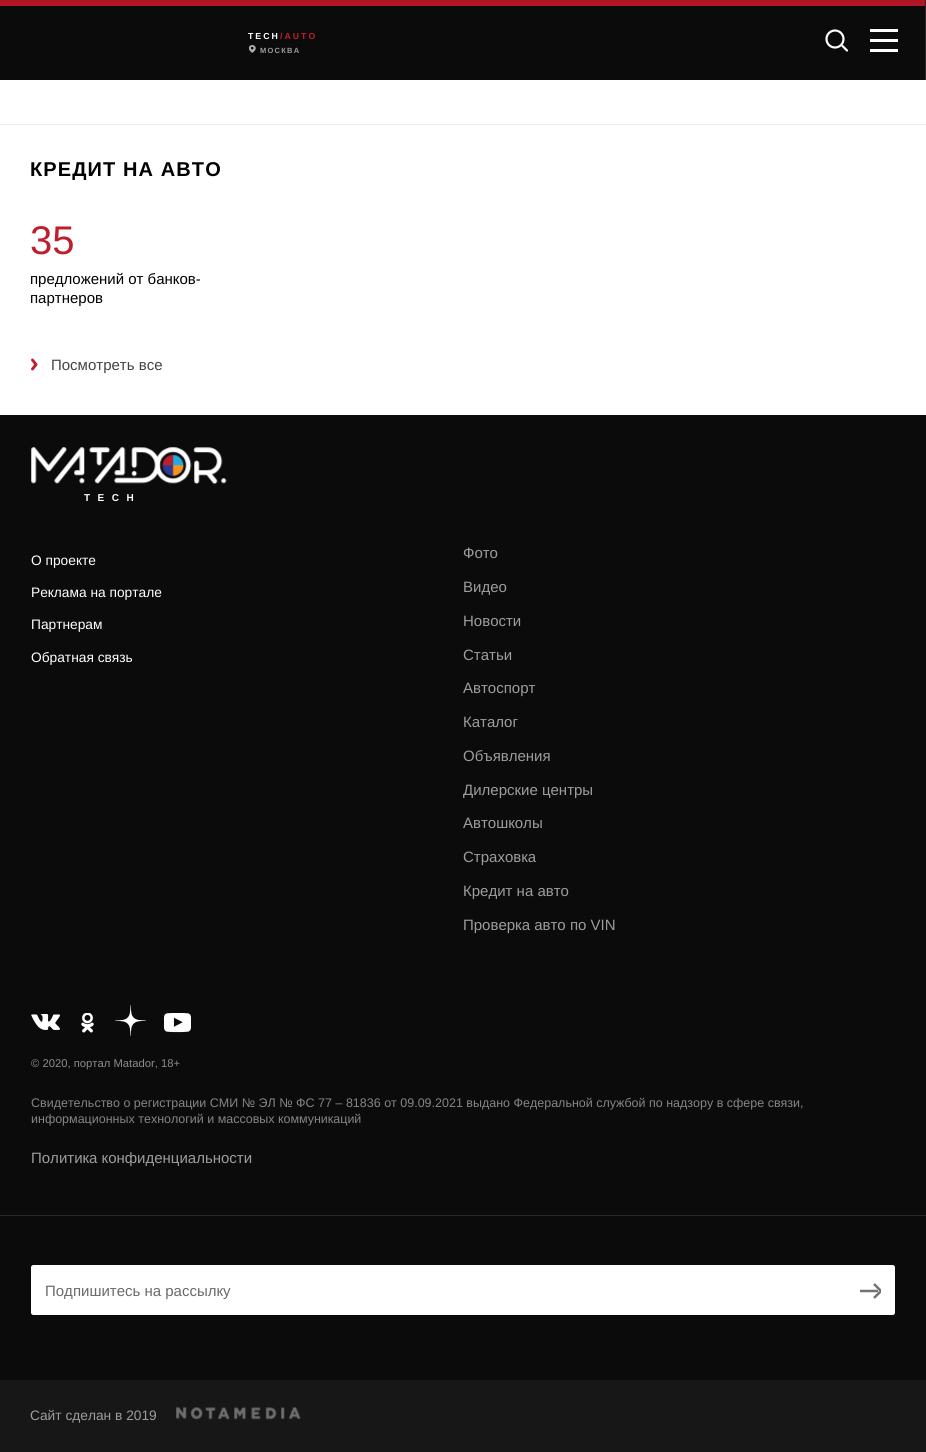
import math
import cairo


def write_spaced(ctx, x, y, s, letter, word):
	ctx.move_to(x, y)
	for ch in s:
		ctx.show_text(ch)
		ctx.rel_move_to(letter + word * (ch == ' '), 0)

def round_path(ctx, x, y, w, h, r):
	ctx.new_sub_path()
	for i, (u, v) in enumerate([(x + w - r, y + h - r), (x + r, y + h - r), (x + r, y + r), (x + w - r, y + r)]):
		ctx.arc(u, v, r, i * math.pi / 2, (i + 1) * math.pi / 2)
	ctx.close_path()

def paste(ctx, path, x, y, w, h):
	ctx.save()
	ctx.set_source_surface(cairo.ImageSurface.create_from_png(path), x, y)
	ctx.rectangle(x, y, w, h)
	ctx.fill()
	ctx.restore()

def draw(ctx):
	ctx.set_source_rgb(1, 1, 1)
	ctx.paint()
	ctx.set_source_rgb(0.043, 0.043, 0.043)
	ctx.rectangle(0, 6, 925, 74)
	ctx.fill()
	ctx.set_source_rgb(0.149, 0.149, 0.149)
	ctx.rectangle(925, 0, 1, 80)
	ctx.fill()
	ctx.set_source_rgb(0.698, 0.086, 0.141)
	ctx.rectangle(0, 0, 925, 6)
	ctx.fill()
	ctx.select_font_face('Liberation Sans', cairo.FONT_SLANT_NORMAL, cairo.FONT_WEIGHT_BOLD)
	ctx.set_font_size(8.75)
	ctx.set_source_rgb(1, 1, 1)
	write_spaced(ctx, 248, 39, 'TECH', 2, 0)
	ctx.set_source_rgb(0.745, 0.118, 0.176)
	write_spaced(ctx, 280, 39, '/AUTO', 2, 0)
	paste(ctx, 'media/1.png', 249, 45, 7, 8)
	ctx.set_font_size(7.5)
	ctx.set_source_rgb(0.616, 0.616, 0.616)
	write_spaced(ctx, 260, 53, 'МОСКВА', 1.25, 0)
	ctx.new_path()
	ctx.arc(835, 39, 8.5, 0, 2 * math.pi)
	ctx.set_source_rgb(1, 1, 1)
	ctx.set_line_width(2.2)
	ctx.stroke()
	ctx.new_path()
	ctx.move_to(847, 50.5)
	ctx.line_to(842.5, 46)
	ctx.set_line_cap(cairo.LINE_CAP_ROUND)
	ctx.set_line_join(cairo.LINE_JOIN_ROUND)
	ctx.stroke()
	ctx.rectangle(870, 29, 28, 3)
	ctx.rectangle(870, 39, 28, 3)
	ctx.rectangle(870, 49, 28, 3)
	ctx.fill()
	ctx.set_source_rgb(0.922, 0.922, 0.922)
	ctx.rectangle(0, 124, 926, 1)
	ctx.fill()
	ctx.set_font_size(20)
	ctx.set_source_rgb(0, 0, 0)
	write_spaced(ctx, 30, 176, 'КРЕДИТ НА АВТО', 1.1, 0)
	ctx.select_font_face('Liberation Sans')
	ctx.set_font_size(40)
	ctx.set_source_rgb(0.745, 0.118, 0.176)
	ctx.move_to(30, 254)
	ctx.show_text('35')
	ctx.set_font_size(15)
	ctx.set_source_rgb(0, 0, 0)
	ctx.move_to(30, 284)
	ctx.show_text('предложений от банков-')
	ctx.move_to(30, 303)
	ctx.show_text('партнеров')
	ctx.new_path()
	ctx.move_to(32.5, 360)
	ctx.line_to(36, 364.5)
	ctx.line_to(32.5, 369)
	ctx.set_source_rgb(0.745, 0.118, 0.176)
	ctx.set_line_width(2.9)
	ctx.stroke()
	ctx.set_source_rgb(0.263, 0.263, 0.263)
	ctx.move_to(51, 370)
	ctx.show_text('Посмотреть все')
	ctx.set_source_rgb(0.043, 0.043, 0.043)
	ctx.rectangle(0, 415, 926, 965)
	ctx.fill()
	paste(ctx, 'media/2.png', 31, 447, 196, 38)
	ctx.select_font_face('Liberation Sans', cairo.FONT_SLANT_NORMAL, cairo.FONT_WEIGHT_BOLD)
	ctx.set_font_size(10)
	ctx.set_source_rgb(1, 1, 1)
	write_spaced(ctx, 84, 501, 'TECH', 7.5, 0)
	ctx.select_font_face('Liberation Sans')
	ctx.set_font_size(13.75)
	for x, y, s in [
		(31, 565, 'О проекте'),
		(31, 597, 'Реклама на портале'),
		(31, 629, 'Партнерам'),
		(31, 662, 'Обратная связь'),
	]:
		ctx.move_to(x, y)
		ctx.show_text(s)
	ctx.set_font_size(15)
	ctx.set_source_rgb(0.616, 0.616, 0.616)
	for x, y, s in [
		(463, 558, 'Фото'),
		(463, 592, 'Видео'),
		(463, 626, 'Новости'),
		(463, 660, 'Статьи'),
		(463, 693, 'Автоспорт'),
		(463, 727, 'Каталог'),
		(463, 761, 'Объявления'),
		(463, 795, 'Дилерские центры'),
		(463, 828, 'Автошколы'),
		(463, 862, 'Страховка'),
		(463, 896, 'Кредит на авто'),
		(463, 930, 'Проверка авто по VIN'),
	]:
		ctx.move_to(x, y)
		ctx.show_text(s)
	paste(ctx, 'media/3.png', 31, 1014, 29, 16)
	paste(ctx, 'media/4.png', 81, 1013, 13, 20)
	paste(ctx, 'media/5.png', 115, 1005, 31, 31)
	paste(ctx, 'media/6.png', 164, 1013, 27, 20)
	ctx.set_font_size(11.25)
	ctx.set_source_rgb(0.549, 0.549, 0.549)
	ctx.move_to(31, 1067)
	ctx.show_text('© 2020, портал Matador, 18+')
	ctx.set_font_size(12.5)
	ctx.set_source_rgb(0.522, 0.522, 0.522)
	ctx.move_to(31, 1107)
	ctx.show_text('Свидетельство о регистрации СМИ № ЭЛ № ФС 77 – 81836 от 09.09.2021 выдано Федеральной службой по надзору в сфере связи,')
	ctx.move_to(31, 1123)
	ctx.show_text('информационных технологий и массовых коммуникаций')
	ctx.set_font_size(15)
	ctx.set_source_rgb(0.616, 0.616, 0.616)
	ctx.move_to(31, 1163)
	ctx.show_text('Политика конфиденциальности')
	ctx.set_source_rgb(0.157, 0.157, 0.157)
	ctx.rectangle(0, 1215, 926, 1)
	ctx.fill()
	ctx.set_source_rgb(1, 1, 1)
	round_path(ctx, 31.5, 1265.5, 863, 49, 2)
	ctx.fill_preserve()
	ctx.set_line_width(1)
	ctx.set_line_cap(cairo.LINE_CAP_BUTT)
	ctx.set_line_join(cairo.LINE_JOIN_MITER)
	ctx.stroke()
	ctx.set_source_rgb(0.416, 0.416, 0.416)
	ctx.move_to(45, 1296)
	ctx.show_text('Подпишитесь на рассылку')
	ctx.new_path()
	ctx.move_to(860, 1291)
	ctx.line_to(878, 1291)
	ctx.set_source_rgb(0.451, 0.451, 0.451)
	ctx.set_line_width(2.5)
	ctx.stroke()
	ctx.save()
	ctx.rectangle(859, 1281, 22, 19)
	ctx.clip()
	ctx.new_path()
	ctx.move_to(874, 1284)
	ctx.line_to(881, 1291)
	ctx.line_to(874, 1298)
	ctx.stroke()
	ctx.restore()
	ctx.set_source_rgb(0.09, 0.09, 0.09)
	ctx.rectangle(0, 1380, 926, 72)
	ctx.fill()
	ctx.set_font_size(13.75)
	ctx.set_source_rgb(0.616, 0.616, 0.616)
	ctx.move_to(30, 1420)
	ctx.show_text('Сайт сделан в 2019')
	paste(ctx, 'media/7.png', 176, 1407, 125, 13)


surface = cairo.ImageSurface(cairo.FORMAT_RGB24, 926, 1452)
ctx = cairo.Context(surface)
options = cairo.FontOptions()
options.set_hint_metrics(cairo.HINT_METRICS_OFF)
options.set_hint_style(cairo.HINT_STYLE_NONE)
ctx.set_font_options(options)
ctx.set_miter_limit(4)
draw(ctx)
surface.write_to_png('image.png')
